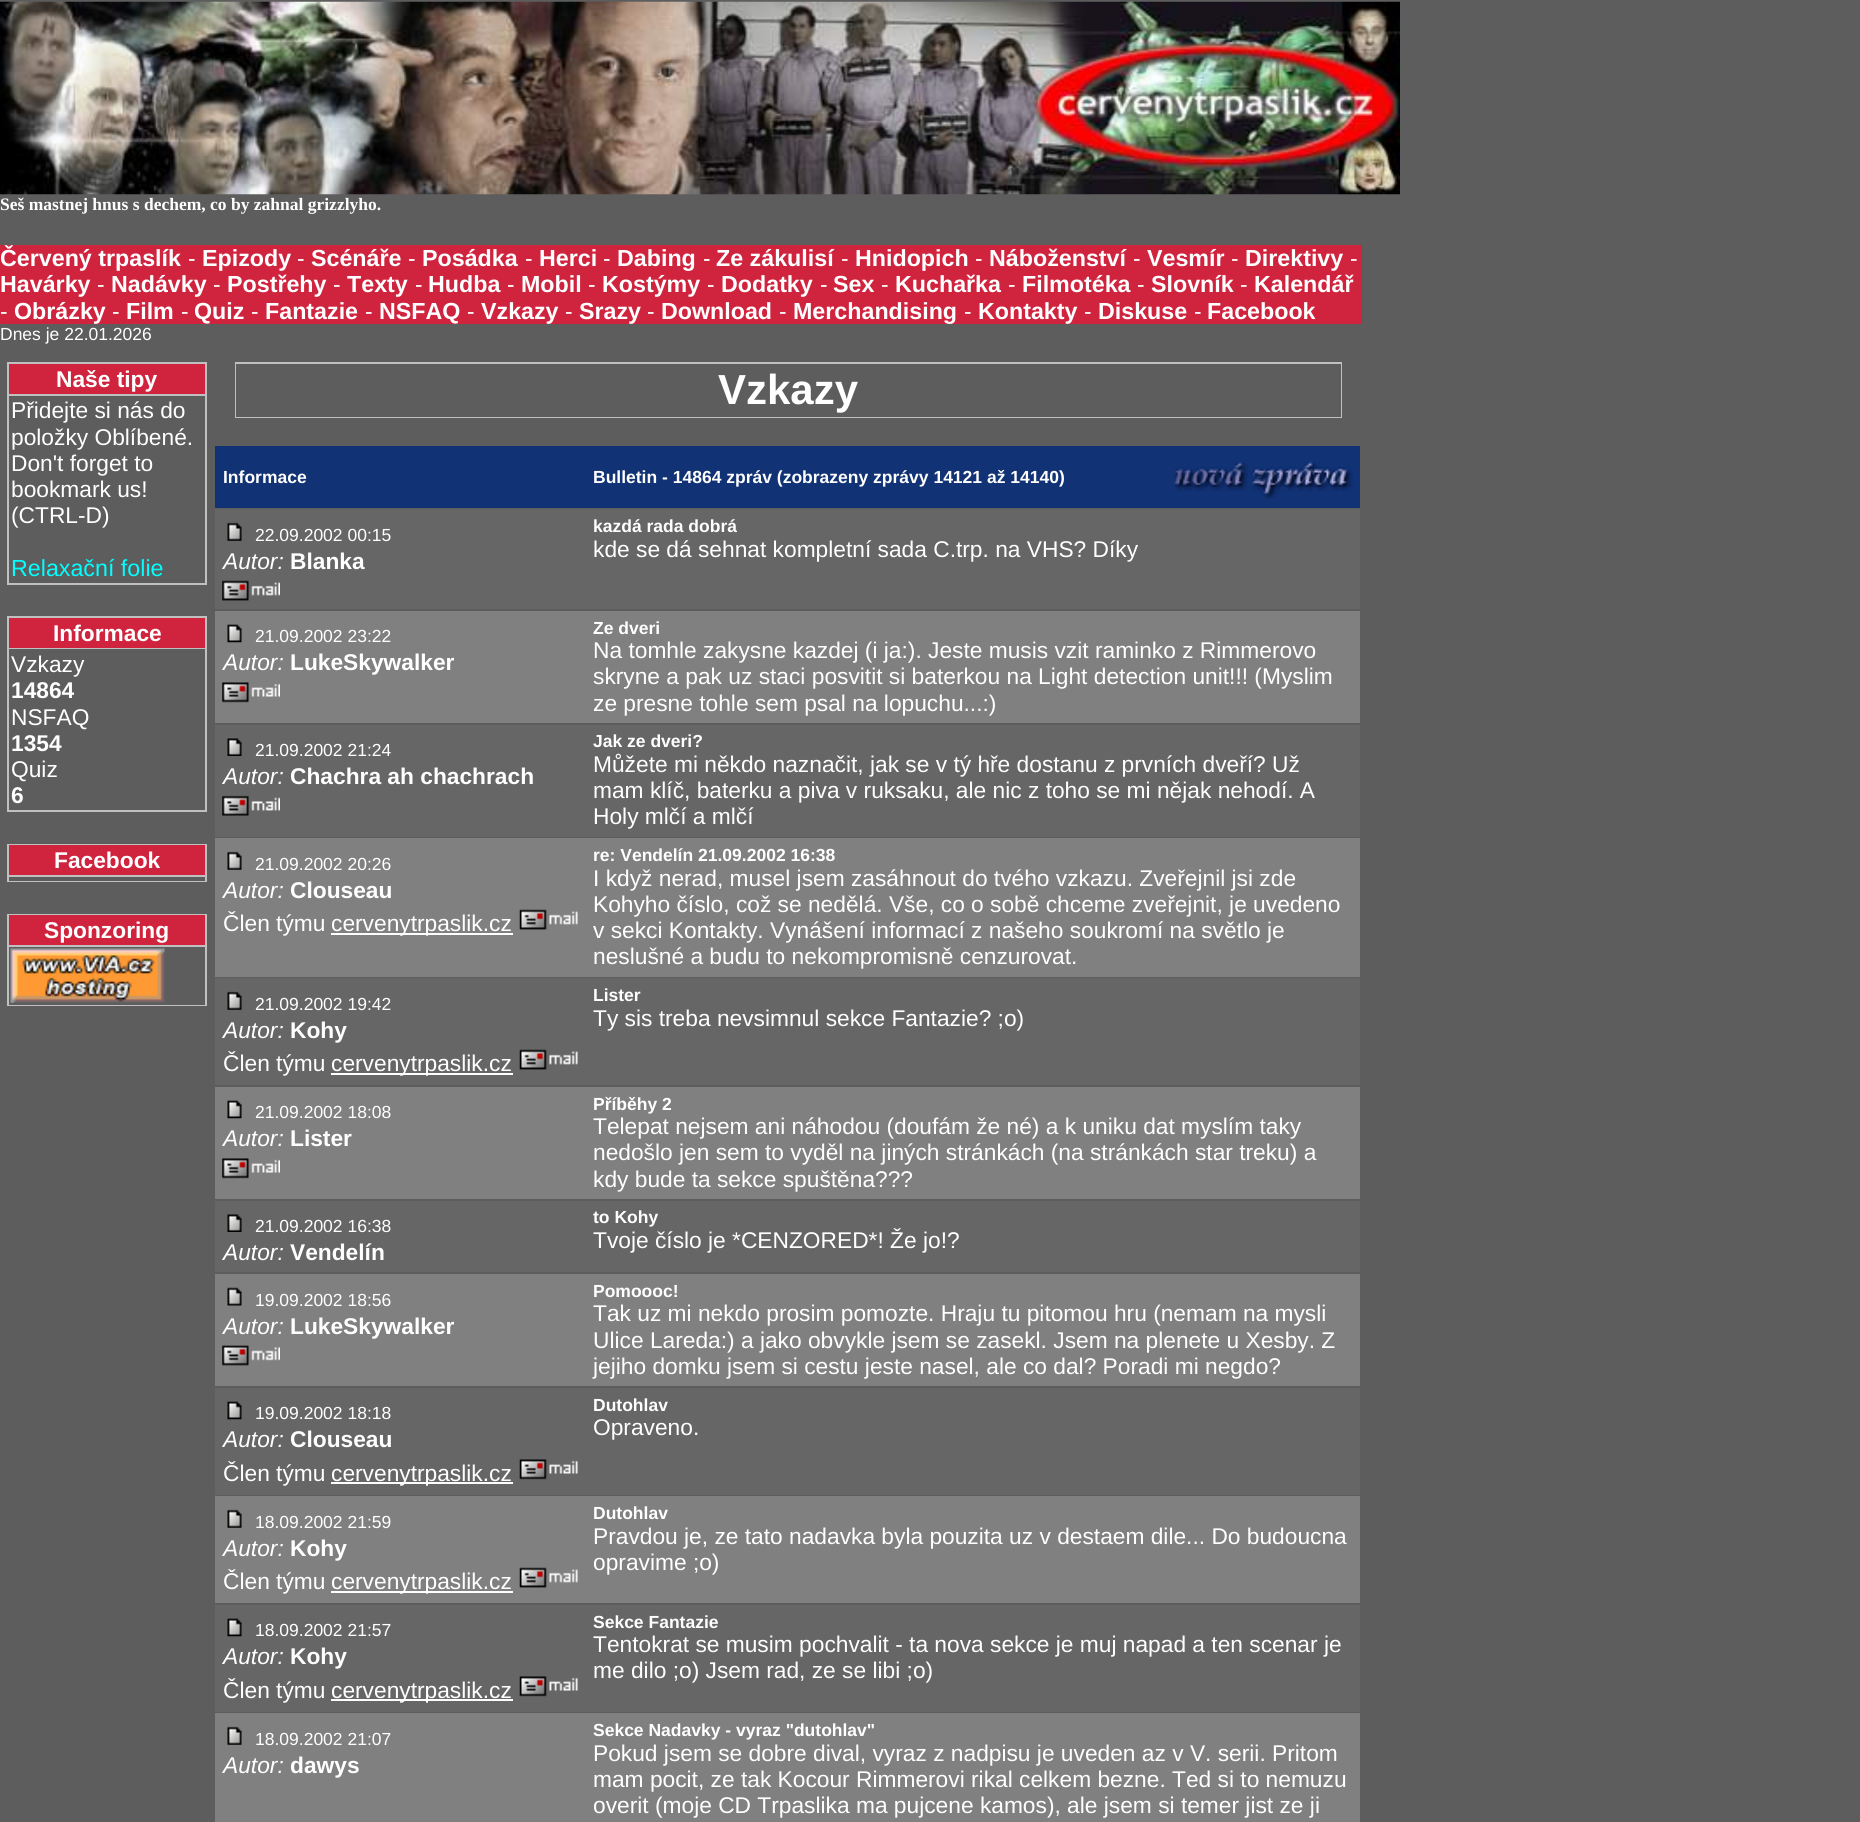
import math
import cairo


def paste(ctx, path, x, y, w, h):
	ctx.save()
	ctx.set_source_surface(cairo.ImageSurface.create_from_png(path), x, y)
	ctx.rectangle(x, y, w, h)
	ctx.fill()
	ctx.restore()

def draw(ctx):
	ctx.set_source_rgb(0.365, 0.365, 0.365)
	ctx.paint()
	paste(ctx, 'media/1.png', 0, 1, 1400, 194)
	ctx.select_font_face('Liberation Serif', cairo.FONT_SLANT_NORMAL, cairo.FONT_WEIGHT_BOLD)
	ctx.set_font_size(17.5)
	ctx.set_source_rgb(1, 1, 1)
	ctx.move_to(0, 210)
	ctx.show_text('Seš mastnej hnus s dechem, co by zahnal grizzlyho.')
	ctx.set_source_rgb(0.816, 0.141, 0.243)
	ctx.rectangle(0, 245, 1362, 79)
	ctx.fill()
	ctx.select_font_face('Liberation Sans', cairo.FONT_SLANT_NORMAL, cairo.FONT_WEIGHT_BOLD)
	ctx.set_font_size(23.25)
	ctx.set_source_rgb(1, 1, 1)
	ctx.move_to(0, 266)
	ctx.show_text('Červený trpaslík')
	ctx.select_font_face('Liberation Sans')
	ctx.set_font_size(22.75)
	ctx.move_to(188, 266)
	ctx.show_text('-')
	ctx.select_font_face('Liberation Sans', cairo.FONT_SLANT_NORMAL, cairo.FONT_WEIGHT_BOLD)
	ctx.set_font_size(23.25)
	ctx.move_to(202, 266)
	ctx.show_text('Epizody')
	ctx.select_font_face('Liberation Sans')
	ctx.set_font_size(22.75)
	ctx.move_to(297, 266)
	ctx.show_text('-')
	ctx.select_font_face('Liberation Sans', cairo.FONT_SLANT_NORMAL, cairo.FONT_WEIGHT_BOLD)
	ctx.set_font_size(23.25)
	ctx.move_to(311, 266)
	ctx.show_text('Scénáře')
	ctx.select_font_face('Liberation Sans')
	ctx.set_font_size(22.75)
	ctx.move_to(408, 266)
	ctx.show_text('-')
	ctx.select_font_face('Liberation Sans', cairo.FONT_SLANT_NORMAL, cairo.FONT_WEIGHT_BOLD)
	ctx.set_font_size(23.25)
	ctx.move_to(422, 266)
	ctx.show_text('Posádka')
	ctx.select_font_face('Liberation Sans')
	ctx.set_font_size(22.75)
	ctx.move_to(525, 266)
	ctx.show_text('-')
	ctx.select_font_face('Liberation Sans', cairo.FONT_SLANT_NORMAL, cairo.FONT_WEIGHT_BOLD)
	ctx.set_font_size(23.25)
	ctx.move_to(539, 266)
	ctx.show_text('Herci')
	ctx.select_font_face('Liberation Sans')
	ctx.set_font_size(22.75)
	ctx.move_to(603, 266)
	ctx.show_text('-')
	ctx.select_font_face('Liberation Sans', cairo.FONT_SLANT_NORMAL, cairo.FONT_WEIGHT_BOLD)
	ctx.set_font_size(23.25)
	ctx.move_to(617, 266)
	ctx.show_text('Dabing')
	ctx.select_font_face('Liberation Sans')
	ctx.set_font_size(22.75)
	ctx.move_to(703, 266)
	ctx.show_text('-')
	ctx.select_font_face('Liberation Sans', cairo.FONT_SLANT_NORMAL, cairo.FONT_WEIGHT_BOLD)
	ctx.set_font_size(23.25)
	ctx.move_to(716, 266)
	ctx.show_text('Ze zákulisí')
	ctx.select_font_face('Liberation Sans')
	ctx.set_font_size(22.75)
	ctx.move_to(841, 266)
	ctx.show_text('-')
	ctx.select_font_face('Liberation Sans', cairo.FONT_SLANT_NORMAL, cairo.FONT_WEIGHT_BOLD)
	ctx.set_font_size(23.25)
	ctx.move_to(855, 266)
	ctx.show_text('Hnidopich')
	ctx.select_font_face('Liberation Sans')
	ctx.set_font_size(22.75)
	ctx.move_to(975, 266)
	ctx.show_text('-')
	ctx.select_font_face('Liberation Sans', cairo.FONT_SLANT_NORMAL, cairo.FONT_WEIGHT_BOLD)
	ctx.set_font_size(23.25)
	ctx.move_to(989, 266)
	ctx.show_text('Náboženství')
	ctx.select_font_face('Liberation Sans')
	ctx.set_font_size(22.75)
	ctx.move_to(1133, 266)
	ctx.show_text('-')
	ctx.select_font_face('Liberation Sans', cairo.FONT_SLANT_NORMAL, cairo.FONT_WEIGHT_BOLD)
	ctx.set_font_size(23.25)
	ctx.move_to(1147, 266)
	ctx.show_text('Vesmír')
	ctx.select_font_face('Liberation Sans')
	ctx.set_font_size(22.75)
	ctx.move_to(1231, 266)
	ctx.show_text('-')
	ctx.select_font_face('Liberation Sans', cairo.FONT_SLANT_NORMAL, cairo.FONT_WEIGHT_BOLD)
	ctx.set_font_size(23.25)
	ctx.move_to(1245, 266)
	ctx.show_text('Direktivy')
	ctx.select_font_face('Liberation Sans')
	ctx.set_font_size(22.75)
	ctx.move_to(1350, 266)
	ctx.show_text('-')
	ctx.select_font_face('Liberation Sans', cairo.FONT_SLANT_NORMAL, cairo.FONT_WEIGHT_BOLD)
	ctx.set_font_size(23.25)
	ctx.move_to(0, 292)
	ctx.show_text('Havárky')
	ctx.select_font_face('Liberation Sans')
	ctx.set_font_size(22.75)
	ctx.move_to(97, 292)
	ctx.show_text('-')
	ctx.select_font_face('Liberation Sans', cairo.FONT_SLANT_NORMAL, cairo.FONT_WEIGHT_BOLD)
	ctx.set_font_size(23.25)
	ctx.move_to(111, 292)
	ctx.show_text('Nadávky')
	ctx.select_font_face('Liberation Sans')
	ctx.set_font_size(22.75)
	ctx.move_to(213, 292)
	ctx.show_text('-')
	ctx.select_font_face('Liberation Sans', cairo.FONT_SLANT_NORMAL, cairo.FONT_WEIGHT_BOLD)
	ctx.set_font_size(23.25)
	ctx.move_to(227, 292)
	ctx.show_text('Postřehy')
	ctx.select_font_face('Liberation Sans')
	ctx.set_font_size(22.75)
	ctx.move_to(333, 292)
	ctx.show_text('-')
	ctx.select_font_face('Liberation Sans', cairo.FONT_SLANT_NORMAL, cairo.FONT_WEIGHT_BOLD)
	ctx.set_font_size(23.25)
	ctx.move_to(347, 292)
	ctx.show_text('Texty')
	ctx.select_font_face('Liberation Sans')
	ctx.set_font_size(22.75)
	ctx.move_to(415, 292)
	ctx.show_text('-')
	ctx.select_font_face('Liberation Sans', cairo.FONT_SLANT_NORMAL, cairo.FONT_WEIGHT_BOLD)
	ctx.set_font_size(23.25)
	ctx.move_to(428, 292)
	ctx.show_text('Hudba')
	ctx.select_font_face('Liberation Sans')
	ctx.set_font_size(22.75)
	ctx.move_to(507, 292)
	ctx.show_text('-')
	ctx.select_font_face('Liberation Sans', cairo.FONT_SLANT_NORMAL, cairo.FONT_WEIGHT_BOLD)
	ctx.set_font_size(23.25)
	ctx.move_to(521, 292)
	ctx.show_text('Mobil')
	ctx.select_font_face('Liberation Sans')
	ctx.set_font_size(22.75)
	ctx.move_to(588, 292)
	ctx.show_text('-')
	ctx.select_font_face('Liberation Sans', cairo.FONT_SLANT_NORMAL, cairo.FONT_WEIGHT_BOLD)
	ctx.set_font_size(23.25)
	ctx.move_to(602, 292)
	ctx.show_text('Kostýmy')
	ctx.select_font_face('Liberation Sans')
	ctx.set_font_size(22.75)
	ctx.move_to(707, 292)
	ctx.show_text('-')
	ctx.select_font_face('Liberation Sans', cairo.FONT_SLANT_NORMAL, cairo.FONT_WEIGHT_BOLD)
	ctx.set_font_size(23.25)
	ctx.move_to(721, 292)
	ctx.show_text('Dodatky')
	ctx.select_font_face('Liberation Sans')
	ctx.set_font_size(22.75)
	ctx.move_to(820, 292)
	ctx.show_text('-')
	ctx.select_font_face('Liberation Sans', cairo.FONT_SLANT_NORMAL, cairo.FONT_WEIGHT_BOLD)
	ctx.set_font_size(23.25)
	ctx.move_to(833, 292)
	ctx.show_text('Sex')
	ctx.select_font_face('Liberation Sans')
	ctx.set_font_size(22.75)
	ctx.move_to(881, 292)
	ctx.show_text('-')
	ctx.select_font_face('Liberation Sans', cairo.FONT_SLANT_NORMAL, cairo.FONT_WEIGHT_BOLD)
	ctx.set_font_size(23.25)
	ctx.move_to(895, 292)
	ctx.show_text('Kuchařka')
	ctx.select_font_face('Liberation Sans')
	ctx.set_font_size(22.75)
	ctx.move_to(1008, 292)
	ctx.show_text('-')
	ctx.select_font_face('Liberation Sans', cairo.FONT_SLANT_NORMAL, cairo.FONT_WEIGHT_BOLD)
	ctx.set_font_size(23.25)
	ctx.move_to(1022, 292)
	ctx.show_text('Filmotéka')
	ctx.select_font_face('Liberation Sans')
	ctx.set_font_size(22.75)
	ctx.move_to(1137, 292)
	ctx.show_text('-')
	ctx.select_font_face('Liberation Sans', cairo.FONT_SLANT_NORMAL, cairo.FONT_WEIGHT_BOLD)
	ctx.set_font_size(23.25)
	ctx.move_to(1151, 292)
	ctx.show_text('Slovník')
	ctx.select_font_face('Liberation Sans')
	ctx.set_font_size(22.75)
	ctx.move_to(1240, 292)
	ctx.show_text('-')
	ctx.select_font_face('Liberation Sans', cairo.FONT_SLANT_NORMAL, cairo.FONT_WEIGHT_BOLD)
	ctx.set_font_size(23.25)
	ctx.move_to(1254, 292)
	ctx.show_text('Kalendář')
	ctx.select_font_face('Liberation Sans')
	ctx.set_font_size(22.75)
	ctx.move_to(0, 319)
	ctx.show_text('-')
	ctx.select_font_face('Liberation Sans', cairo.FONT_SLANT_NORMAL, cairo.FONT_WEIGHT_BOLD)
	ctx.set_font_size(23.25)
	ctx.move_to(14, 319)
	ctx.show_text('Obrázky')
	ctx.select_font_face('Liberation Sans')
	ctx.set_font_size(22.75)
	ctx.move_to(112, 319)
	ctx.show_text('-')
	ctx.select_font_face('Liberation Sans', cairo.FONT_SLANT_NORMAL, cairo.FONT_WEIGHT_BOLD)
	ctx.set_font_size(23.25)
	ctx.move_to(126, 319)
	ctx.show_text('Film')
	ctx.select_font_face('Liberation Sans')
	ctx.set_font_size(22.75)
	ctx.move_to(181, 319)
	ctx.show_text('-')
	ctx.select_font_face('Liberation Sans', cairo.FONT_SLANT_NORMAL, cairo.FONT_WEIGHT_BOLD)
	ctx.set_font_size(23.25)
	ctx.move_to(194, 319)
	ctx.show_text('Quiz')
	ctx.select_font_face('Liberation Sans')
	ctx.set_font_size(22.75)
	ctx.move_to(251, 319)
	ctx.show_text('-')
	ctx.select_font_face('Liberation Sans', cairo.FONT_SLANT_NORMAL, cairo.FONT_WEIGHT_BOLD)
	ctx.set_font_size(23.25)
	ctx.move_to(265, 319)
	ctx.show_text('Fantazie')
	ctx.select_font_face('Liberation Sans')
	ctx.set_font_size(22.75)
	ctx.move_to(365, 319)
	ctx.show_text('-')
	ctx.select_font_face('Liberation Sans', cairo.FONT_SLANT_NORMAL, cairo.FONT_WEIGHT_BOLD)
	ctx.set_font_size(23.25)
	ctx.move_to(379, 319)
	ctx.show_text('NSFAQ')
	ctx.select_font_face('Liberation Sans')
	ctx.set_font_size(22.75)
	ctx.move_to(467, 319)
	ctx.show_text('-')
	ctx.select_font_face('Liberation Sans', cairo.FONT_SLANT_NORMAL, cairo.FONT_WEIGHT_BOLD)
	ctx.set_font_size(23.25)
	ctx.move_to(481, 319)
	ctx.show_text('Vzkazy')
	ctx.select_font_face('Liberation Sans')
	ctx.set_font_size(22.75)
	ctx.move_to(565, 319)
	ctx.show_text('-')
	ctx.select_font_face('Liberation Sans', cairo.FONT_SLANT_NORMAL, cairo.FONT_WEIGHT_BOLD)
	ctx.set_font_size(23.25)
	ctx.move_to(579, 319)
	ctx.show_text('Srazy')
	ctx.select_font_face('Liberation Sans')
	ctx.set_font_size(22.75)
	ctx.move_to(647, 319)
	ctx.show_text('-')
	ctx.select_font_face('Liberation Sans', cairo.FONT_SLANT_NORMAL, cairo.FONT_WEIGHT_BOLD)
	ctx.set_font_size(23.25)
	ctx.move_to(661, 319)
	ctx.show_text('Download')
	ctx.select_font_face('Liberation Sans')
	ctx.set_font_size(22.75)
	ctx.move_to(779, 319)
	ctx.show_text('-')
	ctx.select_font_face('Liberation Sans', cairo.FONT_SLANT_NORMAL, cairo.FONT_WEIGHT_BOLD)
	ctx.set_font_size(23.25)
	ctx.move_to(793, 319)
	ctx.show_text('Merchandising')
	ctx.select_font_face('Liberation Sans')
	ctx.set_font_size(22.75)
	ctx.move_to(964, 319)
	ctx.show_text('-')
	ctx.select_font_face('Liberation Sans', cairo.FONT_SLANT_NORMAL, cairo.FONT_WEIGHT_BOLD)
	ctx.set_font_size(23.25)
	ctx.move_to(978, 319)
	ctx.show_text('Kontakty')
	ctx.select_font_face('Liberation Sans')
	ctx.set_font_size(22.75)
	ctx.move_to(1084, 319)
	ctx.show_text('-')
	ctx.select_font_face('Liberation Sans', cairo.FONT_SLANT_NORMAL, cairo.FONT_WEIGHT_BOLD)
	ctx.set_font_size(23.25)
	ctx.move_to(1098, 319)
	ctx.show_text('Diskuse')
	ctx.select_font_face('Liberation Sans')
	ctx.set_font_size(22.75)
	ctx.move_to(1194, 319)
	ctx.show_text('-')
	ctx.select_font_face('Liberation Sans', cairo.FONT_SLANT_NORMAL, cairo.FONT_WEIGHT_BOLD)
	ctx.set_font_size(23.25)
	ctx.move_to(1207, 319)
	ctx.show_text('Facebook')
	ctx.select_font_face('Liberation Sans')
	ctx.set_font_size(17.5)
	ctx.move_to(0, 340)
	ctx.show_text('Dnes je 22.01.2026')
	ctx.set_source_rgb(0.753, 0.753, 0.753)
	ctx.rectangle(7, 362, 200, 223)
	ctx.fill()
	ctx.set_source_rgb(0.816, 0.141, 0.243)
	ctx.rectangle(9, 364, 196, 30)
	ctx.fill()
	ctx.select_font_face('Liberation Sans', cairo.FONT_SLANT_NORMAL, cairo.FONT_WEIGHT_BOLD)
	ctx.set_font_size(22.75)
	ctx.set_source_rgb(1, 1, 1)
	ctx.move_to(56, 387)
	ctx.show_text('Naše tipy')
	ctx.set_source_rgb(0.365, 0.365, 0.365)
	ctx.rectangle(9, 396, 196, 187)
	ctx.fill()
	ctx.select_font_face('Liberation Sans')
	ctx.set_source_rgb(1, 1, 1)
	for x, y, s in [
		(11, 418, 'Přidejte si nás do'),
		(11, 445, 'položky Oblíbené.'),
		(11, 471, 'Don\'t forget to'),
		(11, 497, 'bookmark us!'),
		(11, 523, '(CTRL-D)'),
	]:
		ctx.move_to(x, y)
		ctx.show_text(s)
	ctx.set_font_size(23.25)
	ctx.set_source_rgb(0, 1, 1)
	ctx.move_to(11, 576)
	ctx.show_text('Relaxační folie')
	ctx.set_source_rgb(0.753, 0.753, 0.753)
	ctx.rectangle(7, 616, 200, 196)
	ctx.fill()
	ctx.set_source_rgb(0.816, 0.141, 0.243)
	ctx.rectangle(9, 618, 196, 30)
	ctx.fill()
	ctx.select_font_face('Liberation Sans', cairo.FONT_SLANT_NORMAL, cairo.FONT_WEIGHT_BOLD)
	ctx.set_font_size(22.75)
	ctx.set_source_rgb(1, 1, 1)
	ctx.move_to(53, 641)
	ctx.show_text('Informace')
	ctx.set_source_rgb(0.365, 0.365, 0.365)
	ctx.rectangle(9, 649, 196, 161)
	ctx.fill()
	ctx.select_font_face('Liberation Sans')
	ctx.set_source_rgb(1, 1, 1)
	ctx.move_to(11, 672)
	ctx.show_text('Vzkazy')
	ctx.select_font_face('Liberation Sans', cairo.FONT_SLANT_NORMAL, cairo.FONT_WEIGHT_BOLD)
	ctx.move_to(11, 698)
	ctx.show_text('14864')
	ctx.select_font_face('Liberation Sans')
	ctx.move_to(11, 725)
	ctx.show_text('NSFAQ')
	ctx.select_font_face('Liberation Sans', cairo.FONT_SLANT_NORMAL, cairo.FONT_WEIGHT_BOLD)
	ctx.move_to(11, 751)
	ctx.show_text('1354')
	ctx.select_font_face('Liberation Sans')
	ctx.move_to(11, 777)
	ctx.show_text('Quiz')
	ctx.select_font_face('Liberation Sans', cairo.FONT_SLANT_NORMAL, cairo.FONT_WEIGHT_BOLD)
	ctx.move_to(11, 803)
	ctx.show_text('6')
	ctx.set_source_rgb(0.753, 0.753, 0.753)
	ctx.rectangle(7, 844, 200, 38)
	ctx.fill()
	ctx.set_source_rgb(0.816, 0.141, 0.243)
	ctx.rectangle(9, 845, 196, 30)
	ctx.fill()
	ctx.set_source_rgb(1, 1, 1)
	ctx.move_to(54, 868)
	ctx.show_text('Facebook')
	ctx.set_source_rgb(0.365, 0.365, 0.365)
	ctx.rectangle(9, 877, 196, 4)
	ctx.fill()
	ctx.set_source_rgb(0.753, 0.753, 0.753)
	ctx.rectangle(7, 914, 200, 92)
	ctx.fill()
	ctx.set_source_rgb(0.816, 0.141, 0.243)
	ctx.rectangle(9, 915, 196, 30)
	ctx.fill()
	ctx.set_source_rgb(1, 1, 1)
	ctx.move_to(44, 938)
	ctx.show_text('Sponzoring')
	ctx.set_source_rgb(0.365, 0.365, 0.365)
	ctx.rectangle(9, 947, 196, 58)
	ctx.fill()
	paste(ctx, 'media/2.png', 10, 948, 155, 55)
	ctx.set_source_rgb(0.753, 0.753, 0.753)
	ctx.rectangle(235, 362, 1107, 56)
	ctx.fill()
	ctx.set_source_rgb(0.365, 0.365, 0.365)
	ctx.rectangle(236, 364, 1105, 53)
	ctx.fill()
	ctx.set_font_size(42)
	ctx.set_source_rgb(1, 1, 1)
	ctx.move_to(718, 404)
	ctx.show_text('Vzkazy')
	ctx.set_source_rgb(0.067, 0.196, 0.455)
	ctx.rectangle(215, 446, 1145, 62)
	ctx.fill()
	ctx.set_font_size(17.5)
	ctx.set_source_rgb(1, 1, 1)
	ctx.move_to(223, 483)
	ctx.show_text('Informace')
	ctx.move_to(593, 483)
	ctx.show_text('Bulletin - 14864 zpráv (zobrazeny zprávy 14121 až 14140)')
	paste(ctx, 'media/3.png', 1174, 461, 179, 38)
	ctx.set_source_rgb(0.4, 0.4, 0.4)
	ctx.rectangle(215, 509, 1145, 100)
	ctx.fill()
	paste(ctx, 'media/4.png', 227, 522, 15, 19)
	ctx.select_font_face('Liberation Sans')
	ctx.set_source_rgb(1, 1, 1)
	ctx.move_to(255, 541)
	ctx.show_text('22.09.2002 00:15')
	ctx.select_font_face('Liberation Sans', cairo.FONT_SLANT_ITALIC)
	ctx.set_font_size(22.75)
	ctx.move_to(223, 569)
	ctx.show_text('Autor:')
	ctx.select_font_face('Liberation Sans', cairo.FONT_SLANT_NORMAL, cairo.FONT_WEIGHT_BOLD)
	ctx.move_to(290, 569)
	ctx.show_text('Blanka')
	paste(ctx, 'media/5.png', 222, 580, 58, 21)
	ctx.set_font_size(17.5)
	ctx.move_to(593, 532)
	ctx.show_text('kazdá rada dobrá')
	ctx.select_font_face('Liberation Sans')
	ctx.set_font_size(22.75)
	ctx.move_to(593, 557)
	ctx.show_text('kde se dá sehnat kompletní sada C.trp. na VHS? Díky')
	ctx.set_source_rgb(0.502, 0.502, 0.502)
	ctx.rectangle(215, 611, 1145, 112)
	ctx.fill()
	paste(ctx, 'media/6.png', 227, 624, 15, 19)
	ctx.set_font_size(17.5)
	ctx.set_source_rgb(1, 1, 1)
	ctx.move_to(255, 642)
	ctx.show_text('21.09.2002 23:22')
	ctx.select_font_face('Liberation Sans', cairo.FONT_SLANT_ITALIC)
	ctx.set_font_size(22.75)
	ctx.move_to(223, 670)
	ctx.show_text('Autor:')
	ctx.select_font_face('Liberation Sans', cairo.FONT_SLANT_NORMAL, cairo.FONT_WEIGHT_BOLD)
	ctx.move_to(290, 670)
	ctx.show_text('LukeSkywalker')
	paste(ctx, 'media/7.png', 222, 682, 58, 21)
	ctx.set_font_size(17.5)
	ctx.move_to(593, 634)
	ctx.show_text('Ze dveri')
	ctx.select_font_face('Liberation Sans')
	ctx.set_font_size(22.75)
	for x, y, s in [
		(593, 658, 'Na tomhle zakysne kazdej (i ja:). Jeste musis vzit raminko z Rimmerovo'),
		(593, 684, 'skryne a pak uz staci posvitit si baterkou na Light detection unit!!! (Myslim'),
		(593, 711, 'ze presne tohle sem psal na lopuchu...:)'),
	]:
		ctx.move_to(x, y)
		ctx.show_text(s)
	ctx.set_source_rgb(0.4, 0.4, 0.4)
	ctx.rectangle(215, 725, 1145, 112)
	ctx.fill()
	paste(ctx, 'media/8.png', 227, 738, 15, 18)
	ctx.set_font_size(17.5)
	ctx.set_source_rgb(1, 1, 1)
	ctx.move_to(255, 756)
	ctx.show_text('21.09.2002 21:24')
	ctx.select_font_face('Liberation Sans', cairo.FONT_SLANT_ITALIC)
	ctx.set_font_size(22.75)
	ctx.move_to(223, 784)
	ctx.show_text('Autor:')
	ctx.select_font_face('Liberation Sans', cairo.FONT_SLANT_NORMAL, cairo.FONT_WEIGHT_BOLD)
	ctx.move_to(290, 784)
	ctx.show_text('Chachra ah chachrach')
	paste(ctx, 'media/9.png', 222, 795, 58, 21)
	ctx.set_font_size(17.5)
	ctx.move_to(593, 747)
	ctx.show_text('Jak ze dveri?')
	ctx.select_font_face('Liberation Sans')
	ctx.set_font_size(22.75)
	for x, y, s in [
		(593, 772, 'Můžete mi někdo naznačit, jak se v tý hře dostanu z prvních dveří? Už'),
		(593, 798, 'mam klíč, baterku a piva v ruksaku, ale nic z toho se mi nějak nehodí. A'),
		(593, 824, 'Holy mlčí a mlčí'),
	]:
		ctx.move_to(x, y)
		ctx.show_text(s)
	ctx.set_source_rgb(0.502, 0.502, 0.502)
	ctx.rectangle(215, 838, 1145, 139)
	ctx.fill()
	paste(ctx, 'media/10.png', 227, 851, 15, 19)
	ctx.set_font_size(17.5)
	ctx.set_source_rgb(1, 1, 1)
	ctx.move_to(255, 870)
	ctx.show_text('21.09.2002 20:26')
	ctx.select_font_face('Liberation Sans', cairo.FONT_SLANT_ITALIC)
	ctx.set_font_size(22.75)
	ctx.move_to(223, 898)
	ctx.show_text('Autor:')
	ctx.select_font_face('Liberation Sans', cairo.FONT_SLANT_NORMAL, cairo.FONT_WEIGHT_BOLD)
	ctx.move_to(290, 898)
	ctx.show_text('Clouseau')
	ctx.select_font_face('Liberation Sans')
	ctx.move_to(223, 931)
	ctx.show_text('Člen týmu')
	ctx.rectangle(331, 933, 182, 2)
	ctx.fill()
	ctx.move_to(331, 931)
	ctx.show_text('cervenytrpaslik.cz')
	paste(ctx, 'media/11.png', 519, 909, 59, 21)
	ctx.select_font_face('Liberation Sans', cairo.FONT_SLANT_NORMAL, cairo.FONT_WEIGHT_BOLD)
	ctx.set_font_size(17.5)
	ctx.move_to(593, 861)
	ctx.show_text('re: Vendelín 21.09.2002 16:38')
	ctx.select_font_face('Liberation Sans')
	ctx.set_font_size(22.75)
	for x, y, s in [
		(593, 886, 'I když nerad, musel jsem zasáhnout do tvého vzkazu. Zveřejnil jsi zde'),
		(593, 912, 'Kohyho číslo, což se nedělá. Vše, co o sobě chceme zveřejnit, je uvedeno'),
		(593, 938, 'v sekci Kontakty. Vynášení informací z našeho soukromí na světlo je'),
		(593, 964, 'neslušné a budu to nekompromisně cenzurovat.'),
	]:
		ctx.move_to(x, y)
		ctx.show_text(s)
	ctx.set_source_rgb(0.4, 0.4, 0.4)
	ctx.rectangle(215, 978, 1145, 107)
	ctx.fill()
	paste(ctx, 'media/4.png', 227, 991, 15, 19)
	ctx.set_font_size(17.5)
	ctx.set_source_rgb(1, 1, 1)
	ctx.move_to(255, 1010)
	ctx.show_text('21.09.2002 19:42')
	ctx.select_font_face('Liberation Sans', cairo.FONT_SLANT_ITALIC)
	ctx.set_font_size(22.75)
	ctx.move_to(223, 1038)
	ctx.show_text('Autor:')
	ctx.select_font_face('Liberation Sans', cairo.FONT_SLANT_NORMAL, cairo.FONT_WEIGHT_BOLD)
	ctx.move_to(290, 1038)
	ctx.show_text('Kohy')
	ctx.select_font_face('Liberation Sans')
	ctx.move_to(223, 1071)
	ctx.show_text('Člen týmu')
	ctx.rectangle(331, 1073, 182, 2)
	ctx.fill()
	ctx.move_to(331, 1071)
	ctx.show_text('cervenytrpaslik.cz')
	paste(ctx, 'media/12.png', 519, 1049, 59, 21)
	ctx.select_font_face('Liberation Sans', cairo.FONT_SLANT_NORMAL, cairo.FONT_WEIGHT_BOLD)
	ctx.set_font_size(17.5)
	ctx.move_to(593, 1001)
	ctx.show_text('Lister')
	ctx.select_font_face('Liberation Sans')
	ctx.set_font_size(22.75)
	ctx.move_to(593, 1026)
	ctx.show_text('Ty sis treba nevsimnul sekce Fantazie? ;o)')
	ctx.set_source_rgb(0.502, 0.502, 0.502)
	ctx.rectangle(215, 1087, 1145, 112)
	ctx.fill()
	paste(ctx, 'media/6.png', 227, 1100, 15, 19)
	ctx.set_font_size(17.5)
	ctx.set_source_rgb(1, 1, 1)
	ctx.move_to(255, 1118)
	ctx.show_text('21.09.2002 18:08')
	ctx.select_font_face('Liberation Sans', cairo.FONT_SLANT_ITALIC)
	ctx.set_font_size(22.75)
	ctx.move_to(223, 1146)
	ctx.show_text('Autor:')
	ctx.select_font_face('Liberation Sans', cairo.FONT_SLANT_NORMAL, cairo.FONT_WEIGHT_BOLD)
	ctx.move_to(290, 1146)
	ctx.show_text('Lister')
	paste(ctx, 'media/7.png', 222, 1158, 58, 21)
	ctx.set_font_size(17.5)
	ctx.move_to(593, 1110)
	ctx.show_text('Příběhy 2')
	ctx.select_font_face('Liberation Sans')
	ctx.set_font_size(22.75)
	for x, y, s in [
		(593, 1134, 'Telepat nejsem ani náhodou (doufám že né) a k uniku dat myslím taky'),
		(593, 1160, 'nedošlo jen sem to vyděl na jiných stránkách (na stránkách star treku) a'),
		(593, 1187, 'kdy bude ta sekce spuštěna???'),
	]:
		ctx.move_to(x, y)
		ctx.show_text(s)
	ctx.set_source_rgb(0.4, 0.4, 0.4)
	ctx.rectangle(215, 1201, 1145, 71)
	ctx.fill()
	paste(ctx, 'media/8.png', 227, 1214, 15, 18)
	ctx.set_font_size(17.5)
	ctx.set_source_rgb(1, 1, 1)
	ctx.move_to(255, 1232)
	ctx.show_text('21.09.2002 16:38')
	ctx.select_font_face('Liberation Sans', cairo.FONT_SLANT_ITALIC)
	ctx.set_font_size(22.75)
	ctx.move_to(223, 1260)
	ctx.show_text('Autor:')
	ctx.select_font_face('Liberation Sans', cairo.FONT_SLANT_NORMAL, cairo.FONT_WEIGHT_BOLD)
	ctx.move_to(290, 1260)
	ctx.show_text('Vendelín')
	ctx.set_font_size(17.5)
	ctx.move_to(593, 1223)
	ctx.show_text('to Kohy')
	ctx.select_font_face('Liberation Sans')
	ctx.set_font_size(22.75)
	ctx.move_to(593, 1248)
	ctx.show_text('Tvoje číslo je *CENZORED*! Že jo!?')
	ctx.set_source_rgb(0.502, 0.502, 0.502)
	ctx.rectangle(215, 1274, 1145, 112)
	ctx.fill()
	paste(ctx, 'media/13.png', 227, 1287, 15, 19)
	ctx.set_font_size(17.5)
	ctx.set_source_rgb(1, 1, 1)
	ctx.move_to(255, 1306)
	ctx.show_text('19.09.2002 18:56')
	ctx.select_font_face('Liberation Sans', cairo.FONT_SLANT_ITALIC)
	ctx.set_font_size(22.75)
	ctx.move_to(223, 1334)
	ctx.show_text('Autor:')
	ctx.select_font_face('Liberation Sans', cairo.FONT_SLANT_NORMAL, cairo.FONT_WEIGHT_BOLD)
	ctx.move_to(290, 1334)
	ctx.show_text('LukeSkywalker')
	paste(ctx, 'media/14.png', 222, 1345, 58, 21)
	ctx.set_font_size(17.5)
	ctx.move_to(593, 1297)
	ctx.show_text('Pomoooc!')
	ctx.select_font_face('Liberation Sans')
	ctx.set_font_size(22.75)
	for x, y, s in [
		(593, 1321, 'Tak uz mi nekdo prosim pomozte. Hraju tu pitomou hru (nemam na mysli'),
		(593, 1348, 'Ulice Lareda:) a jako obvykle jsem se zasekl. Jsem na plenete u Xesby. Z'),
		(593, 1374, 'jejiho domku jsem si cestu jeste nasel, ale co dal? Poradi mi negdo?'),
	]:
		ctx.move_to(x, y)
		ctx.show_text(s)
	ctx.set_source_rgb(0.4, 0.4, 0.4)
	ctx.rectangle(215, 1388, 1145, 107)
	ctx.fill()
	paste(ctx, 'media/15.png', 227, 1401, 15, 19)
	ctx.set_font_size(17.5)
	ctx.set_source_rgb(1, 1, 1)
	ctx.move_to(255, 1419)
	ctx.show_text('19.09.2002 18:18')
	ctx.select_font_face('Liberation Sans', cairo.FONT_SLANT_ITALIC)
	ctx.set_font_size(22.75)
	ctx.move_to(223, 1447)
	ctx.show_text('Autor:')
	ctx.select_font_face('Liberation Sans', cairo.FONT_SLANT_NORMAL, cairo.FONT_WEIGHT_BOLD)
	ctx.move_to(290, 1447)
	ctx.show_text('Clouseau')
	ctx.select_font_face('Liberation Sans')
	ctx.move_to(223, 1481)
	ctx.show_text('Člen týmu')
	ctx.rectangle(331, 1482, 182, 2)
	ctx.fill()
	ctx.move_to(331, 1481)
	ctx.show_text('cervenytrpaslik.cz')
	paste(ctx, 'media/16.png', 519, 1459, 59, 21)
	ctx.select_font_face('Liberation Sans', cairo.FONT_SLANT_NORMAL, cairo.FONT_WEIGHT_BOLD)
	ctx.set_font_size(17.5)
	ctx.move_to(593, 1411)
	ctx.show_text('Dutohlav')
	ctx.select_font_face('Liberation Sans')
	ctx.set_font_size(22.75)
	ctx.move_to(593, 1435)
	ctx.show_text('Opraveno.')
	ctx.set_source_rgb(0.502, 0.502, 0.502)
	ctx.rectangle(215, 1496, 1145, 107)
	ctx.fill()
	paste(ctx, 'media/10.png', 227, 1509, 15, 19)
	ctx.set_font_size(17.5)
	ctx.set_source_rgb(1, 1, 1)
	ctx.move_to(255, 1528)
	ctx.show_text('18.09.2002 21:59')
	ctx.select_font_face('Liberation Sans', cairo.FONT_SLANT_ITALIC)
	ctx.set_font_size(22.75)
	ctx.move_to(223, 1556)
	ctx.show_text('Autor:')
	ctx.select_font_face('Liberation Sans', cairo.FONT_SLANT_NORMAL, cairo.FONT_WEIGHT_BOLD)
	ctx.move_to(290, 1556)
	ctx.show_text('Kohy')
	ctx.select_font_face('Liberation Sans')
	ctx.move_to(223, 1589)
	ctx.show_text('Člen týmu')
	ctx.rectangle(331, 1591, 182, 2)
	ctx.fill()
	ctx.move_to(331, 1589)
	ctx.show_text('cervenytrpaslik.cz')
	paste(ctx, 'media/11.png', 519, 1567, 59, 21)
	ctx.select_font_face('Liberation Sans', cairo.FONT_SLANT_NORMAL, cairo.FONT_WEIGHT_BOLD)
	ctx.set_font_size(17.5)
	ctx.move_to(593, 1519)
	ctx.show_text('Dutohlav')
	ctx.select_font_face('Liberation Sans')
	ctx.set_font_size(22.75)
	ctx.move_to(593, 1544)
	ctx.show_text('Pravdou je, ze tato nadavka byla pouzita uz v destaem dile... Do budoucna')
	ctx.move_to(593, 1570)
	ctx.show_text('opravime ;o)')
	ctx.set_source_rgb(0.4, 0.4, 0.4)
	ctx.rectangle(215, 1605, 1145, 107)
	ctx.fill()
	paste(ctx, 'media/15.png', 227, 1618, 15, 19)
	ctx.set_font_size(17.5)
	ctx.set_source_rgb(1, 1, 1)
	ctx.move_to(255, 1636)
	ctx.show_text('18.09.2002 21:57')
	ctx.select_font_face('Liberation Sans', cairo.FONT_SLANT_ITALIC)
	ctx.set_font_size(22.75)
	ctx.move_to(223, 1664)
	ctx.show_text('Autor:')
	ctx.select_font_face('Liberation Sans', cairo.FONT_SLANT_NORMAL, cairo.FONT_WEIGHT_BOLD)
	ctx.move_to(290, 1664)
	ctx.show_text('Kohy')
	ctx.select_font_face('Liberation Sans')
	ctx.move_to(223, 1698)
	ctx.show_text('Člen týmu')
	ctx.rectangle(331, 1699, 182, 2)
	ctx.fill()
	ctx.move_to(331, 1698)
	ctx.show_text('cervenytrpaslik.cz')
	paste(ctx, 'media/16.png', 519, 1676, 59, 21)
	ctx.select_font_face('Liberation Sans', cairo.FONT_SLANT_NORMAL, cairo.FONT_WEIGHT_BOLD)
	ctx.set_font_size(17.5)
	ctx.move_to(593, 1628)
	ctx.show_text('Sekce Fantazie')
	ctx.select_font_face('Liberation Sans')
	ctx.set_font_size(22.75)
	ctx.move_to(593, 1652)
	ctx.show_text('Tentokrat se musim pochvalit - ta nova sekce je muj napad a ten scenar je')
	ctx.move_to(593, 1678)
	ctx.show_text('me dilo ;o) Jsem rad, ze se libi ;o)')
	ctx.set_source_rgb(0.502, 0.502, 0.502)
	ctx.rectangle(215, 1713, 1145, 109)
	ctx.fill()
	paste(ctx, 'media/10.png', 227, 1726, 15, 19)
	ctx.set_font_size(17.5)
	ctx.set_source_rgb(1, 1, 1)
	ctx.move_to(255, 1745)
	ctx.show_text('18.09.2002 21:07')
	ctx.select_font_face('Liberation Sans', cairo.FONT_SLANT_ITALIC)
	ctx.set_font_size(22.75)
	ctx.move_to(223, 1773)
	ctx.show_text('Autor:')
	ctx.select_font_face('Liberation Sans', cairo.FONT_SLANT_NORMAL, cairo.FONT_WEIGHT_BOLD)
	ctx.move_to(290, 1773)
	ctx.show_text('dawys')
	ctx.set_font_size(17.5)
	ctx.move_to(593, 1736)
	ctx.show_text('Sekce Nadavky - vyraz "dutohlav"')
	ctx.select_font_face('Liberation Sans')
	ctx.set_font_size(22.75)
	for x, y, s in [
		(593, 1761, 'Pokud jsem se dobre dival, vyraz z nadpisu je uveden az v V. serii. Pritom'),
		(593, 1787, 'mam pocit, ze tak Kocour Rimmerovi rikal celkem bezne. Ted si to nemuzu'),
		(593, 1813, 'overit (moje CD Trpaslika ma pujcene kamos), ale jsem si temer jist ze ji'),
	]:
		ctx.move_to(x, y)
		ctx.show_text(s)


surface = cairo.ImageSurface(cairo.FORMAT_RGB24, 1860, 1822)
ctx = cairo.Context(surface)
options = cairo.FontOptions()
options.set_hint_metrics(cairo.HINT_METRICS_OFF)
options.set_hint_style(cairo.HINT_STYLE_NONE)
ctx.set_font_options(options)
ctx.set_miter_limit(4)
draw(ctx)
surface.write_to_png('image.png')
